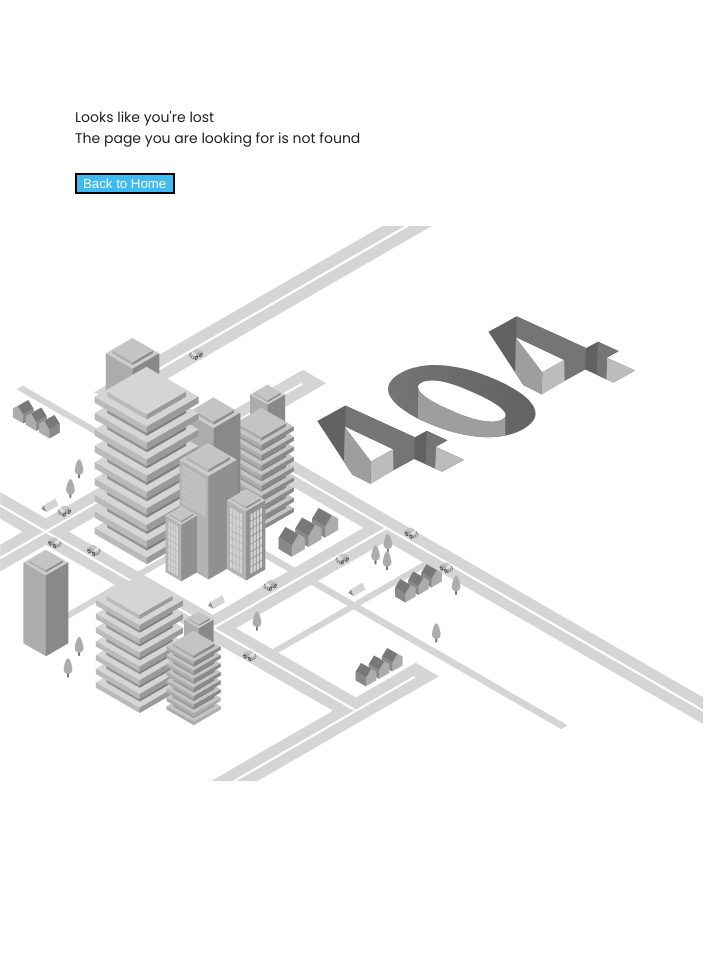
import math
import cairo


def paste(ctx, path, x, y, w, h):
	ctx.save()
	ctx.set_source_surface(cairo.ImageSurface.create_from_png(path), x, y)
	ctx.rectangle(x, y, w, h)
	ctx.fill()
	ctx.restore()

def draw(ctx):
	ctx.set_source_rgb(1, 1, 1)
	ctx.paint()
	ctx.select_font_face('Poppins')
	ctx.set_font_size(14)
	ctx.set_source_rgb(0.129, 0.129, 0.129)
	ctx.move_to(75, 122)
	ctx.show_text('Looks like you\'re lost')
	ctx.move_to(75, 143)
	ctx.show_text('The page you are looking for is not found')
	ctx.set_source_rgb(0.239, 0.733, 0.953)
	ctx.rectangle(76, 174, 98, 19)
	ctx.fill_preserve()
	ctx.set_source_rgb(0, 0, 0)
	ctx.stroke()
	ctx.select_font_face('Liberation Sans')
	ctx.set_font_size(13.25)
	ctx.set_source_rgb(1, 1, 1)
	ctx.move_to(83, 188)
	ctx.show_text('Back to Home')
	paste(ctx, 'media/1.png', 0, 226, 703, 555)


surface = cairo.ImageSurface(cairo.FORMAT_RGB24, 727, 976)
ctx = cairo.Context(surface)
options = cairo.FontOptions()
options.set_hint_metrics(cairo.HINT_METRICS_OFF)
options.set_hint_style(cairo.HINT_STYLE_NONE)
ctx.set_font_options(options)
ctx.set_miter_limit(4)
draw(ctx)
surface.write_to_png('image.png')
